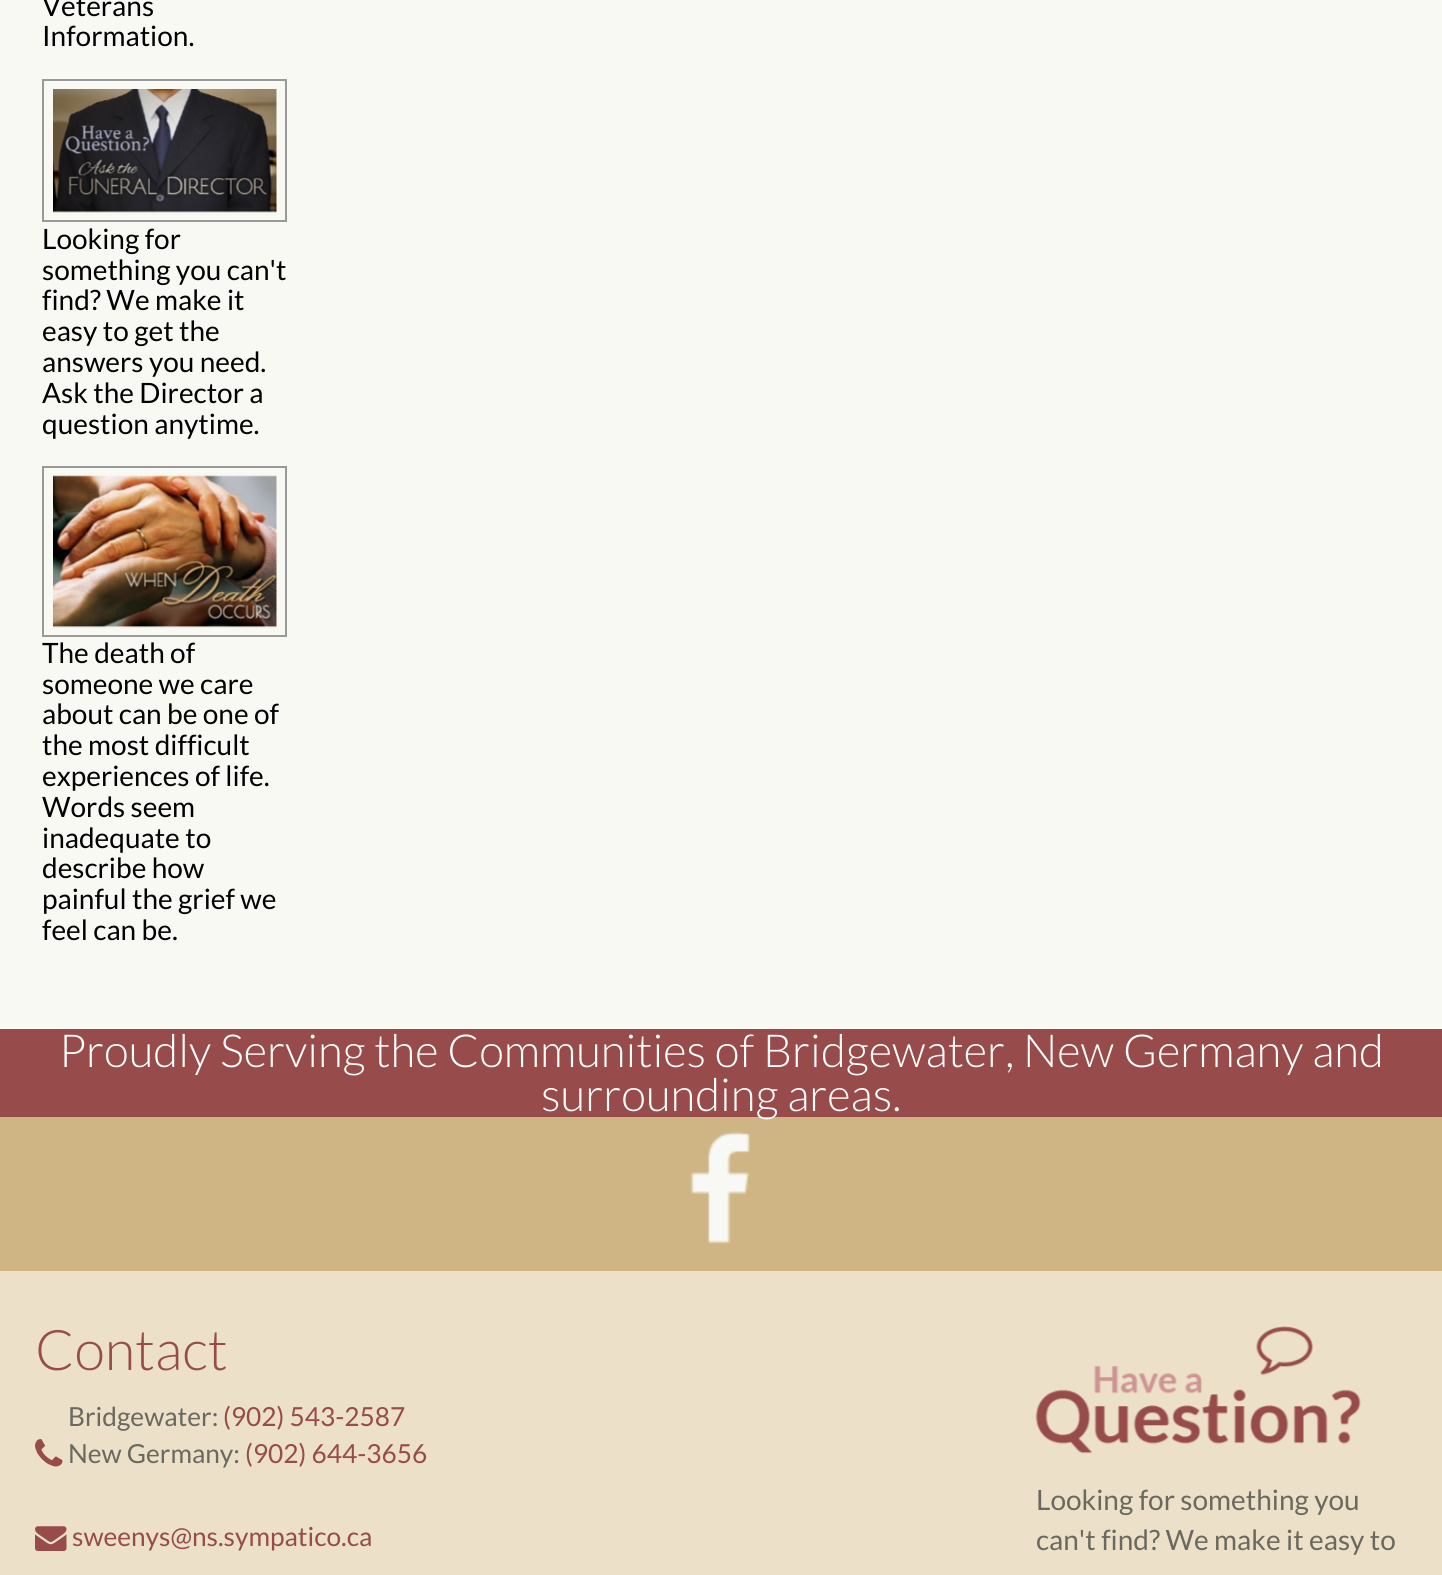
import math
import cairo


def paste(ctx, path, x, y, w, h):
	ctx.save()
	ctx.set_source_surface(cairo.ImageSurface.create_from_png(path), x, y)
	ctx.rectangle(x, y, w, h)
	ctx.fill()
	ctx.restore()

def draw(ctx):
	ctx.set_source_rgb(0.973, 0.973, 0.957)
	ctx.paint()
	ctx.select_font_face('Lato')
	ctx.set_font_size(28)
	ctx.set_source_rgb(0, 0, 0)
	ctx.move_to(42, 16)
	ctx.show_text('Veterans')
	ctx.move_to(42, 46)
	ctx.show_text('Information.')
	ctx.rectangle(43, 80, 243, 141)
	ctx.set_source_rgb(0.6, 0.6, 0.6)
	ctx.stroke()
	paste(ctx, 'media/1.png', 53, 89, 224, 124)
	ctx.set_source_rgb(0, 0, 0)
	for x, y, s in [
		(42, 249, 'Looking for'),
		(42, 280, 'something you can\'t'),
		(42, 310, 'find? We make it'),
		(42, 341, 'easy to get the'),
		(42, 372, 'answers you need.'),
		(42, 403, 'Ask the Director a'),
		(42, 434, 'question anytime.'),
	]:
		ctx.move_to(x, y)
		ctx.show_text(s)
	ctx.rectangle(43, 467, 243, 169)
	ctx.set_source_rgb(0.6, 0.6, 0.6)
	ctx.stroke()
	paste(ctx, 'media/2.png', 53, 475, 224, 153)
	ctx.set_source_rgb(0, 0, 0)
	for x, y, s in [
		(42, 663, 'The death of'),
		(42, 694, 'someone we care'),
		(42, 724, 'about can be one of'),
		(42, 755, 'the most difficult'),
		(42, 786, 'experiences of life.'),
		(42, 817, 'Words seem'),
		(42, 848, 'inadequate to'),
		(42, 878, 'describe how'),
		(42, 909, 'painful the grief we'),
		(42, 940, 'feel can be.'),
	]:
		ctx.move_to(x, y)
		ctx.show_text(s)
	ctx.set_source_rgb(0.592, 0.294, 0.294)
	ctx.rectangle(0, 1029, 1442, 88)
	ctx.fill()
	ctx.select_font_face('Lato Light')
	ctx.set_font_size(45.5)
	ctx.set_source_rgb(1, 1, 1)
	ctx.move_to(59, 1067)
	ctx.show_text('Proudly Serving the Communities of Bridgewater, New Germany and')
	ctx.set_source_rgb(0.812, 0.71, 0.518)
	ctx.rectangle(0, 1117, 1442, 154)
	ctx.fill()
	ctx.set_source_rgb(1, 1, 1)
	ctx.move_to(541, 1111)
	ctx.show_text('surrounding areas.')
	paste(ctx, 'media/3.png', 690, 1131, 60, 113)
	ctx.set_source_rgb(0.925, 0.878, 0.784)
	ctx.rectangle(0, 1271, 1442, 304)
	ctx.fill()
	ctx.set_font_size(56)
	ctx.set_source_rgb(0.592, 0.294, 0.294)
	ctx.move_to(35, 1370)
	ctx.show_text('Contact')
	paste(ctx, 'media/4.png', 35, 1439, 28, 28)
	ctx.select_font_face('Lato')
	ctx.set_font_size(26.25)
	ctx.set_source_rgb(0.416, 0.408, 0.373)
	ctx.move_to(68, 1426)
	ctx.show_text('Bridgewater:')
	ctx.set_source_rgb(0.592, 0.294, 0.294)
	ctx.move_to(223, 1426)
	ctx.show_text('(902) 543-2587')
	ctx.set_source_rgb(0.416, 0.408, 0.373)
	ctx.move_to(68, 1463)
	ctx.show_text('New Germany:')
	ctx.set_source_rgb(0.592, 0.294, 0.294)
	ctx.move_to(245, 1463)
	ctx.show_text('(902) 644-3656')
	paste(ctx, 'media/5.png', 35, 1526, 32, 25)
	ctx.move_to(72, 1546)
	ctx.show_text('sweenys@ns.sympatico.ca')
	paste(ctx, 'media/6.png', 1035, 1326, 326, 128)
	ctx.set_font_size(28)
	ctx.set_source_rgb(0.416, 0.408, 0.373)
	ctx.move_to(1036, 1510)
	ctx.show_text('Looking for something you')
	ctx.move_to(1036, 1550)
	ctx.show_text('can\'t find? We make it easy to')


surface = cairo.ImageSurface(cairo.FORMAT_RGB24, 1442, 1575)
ctx = cairo.Context(surface)
options = cairo.FontOptions()
options.set_hint_metrics(cairo.HINT_METRICS_OFF)
options.set_hint_style(cairo.HINT_STYLE_NONE)
ctx.set_font_options(options)
ctx.set_miter_limit(4)
draw(ctx)
surface.write_to_png('image.png')
